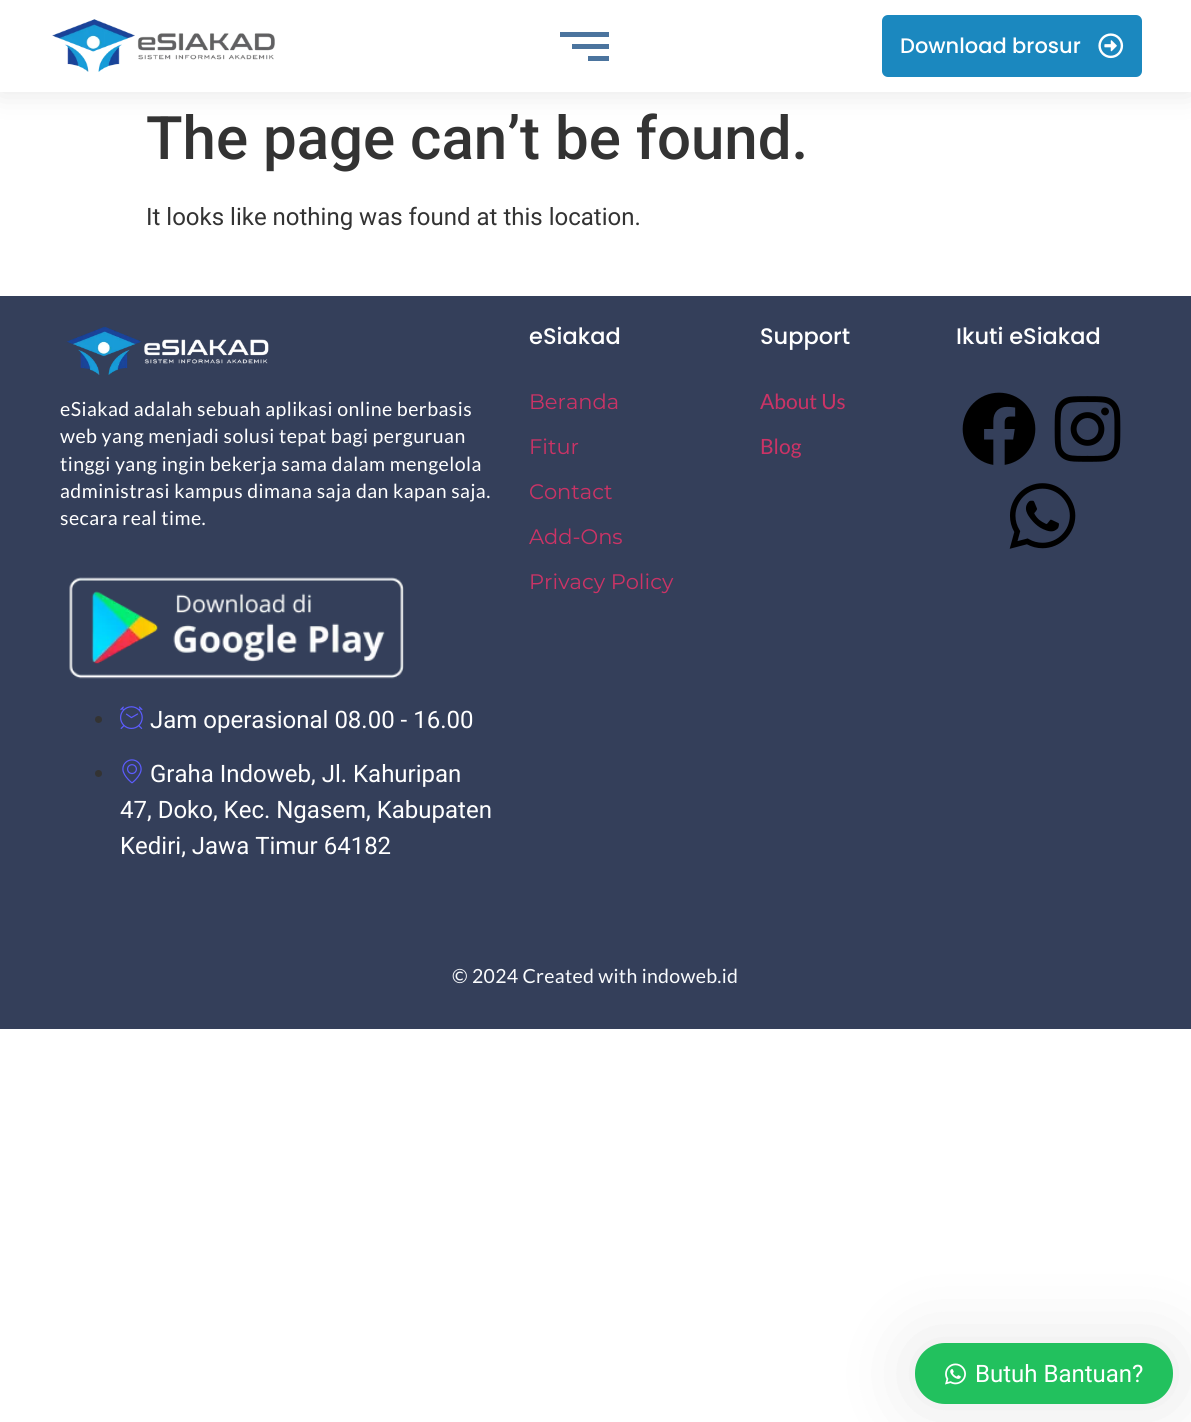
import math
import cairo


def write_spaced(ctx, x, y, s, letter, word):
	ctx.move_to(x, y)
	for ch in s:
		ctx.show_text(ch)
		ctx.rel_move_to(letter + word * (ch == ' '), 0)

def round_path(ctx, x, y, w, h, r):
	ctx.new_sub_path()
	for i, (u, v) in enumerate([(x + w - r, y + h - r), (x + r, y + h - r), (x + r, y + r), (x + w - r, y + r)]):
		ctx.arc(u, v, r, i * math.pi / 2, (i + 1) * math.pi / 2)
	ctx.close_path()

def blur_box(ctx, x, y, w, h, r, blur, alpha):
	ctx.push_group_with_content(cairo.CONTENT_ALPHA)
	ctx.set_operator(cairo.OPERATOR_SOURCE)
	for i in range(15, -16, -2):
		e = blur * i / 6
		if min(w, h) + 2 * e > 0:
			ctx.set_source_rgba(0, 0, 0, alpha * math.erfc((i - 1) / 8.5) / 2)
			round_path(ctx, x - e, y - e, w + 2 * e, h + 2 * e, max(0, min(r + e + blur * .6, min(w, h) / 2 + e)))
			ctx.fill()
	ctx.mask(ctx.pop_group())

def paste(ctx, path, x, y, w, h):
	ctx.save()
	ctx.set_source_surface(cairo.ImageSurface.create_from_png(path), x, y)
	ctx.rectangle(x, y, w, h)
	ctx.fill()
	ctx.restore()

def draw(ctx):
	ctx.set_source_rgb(1, 1, 1)
	ctx.paint()
	ctx.set_source_rgb(0.796, 0.796, 0.796)
	blur_box(ctx, 0, 0, 1191, 92, 0, 15, 0.5)
	ctx.set_source_rgb(1, 1, 1)
	ctx.rectangle(0, 0, 1191, 92)
	ctx.fill()
	paste(ctx, 'media/1.png', 52, 19, 223, 53)
	ctx.set_source_rgb(0.294, 0.455, 0.62)
	ctx.rectangle(560, 32, 49, 5)
	ctx.rectangle(572, 44, 37, 5)
	ctx.rectangle(588, 56, 21, 5)
	ctx.fill()
	ctx.set_source_rgb(0.106, 0.533, 0.749)
	round_path(ctx, 882, 15, 260, 62, 6)
	ctx.fill()
	ctx.select_font_face('Poppins Medium')
	ctx.set_font_size(21)
	ctx.set_source_rgb(1, 1, 1)
	ctx.move_to(900, 53)
	ctx.show_text('Download brosur')
	paste(ctx, 'media/2.png', 1098, 33, 26, 26)
	ctx.select_font_face('Roboto Medium')
	ctx.set_font_size(60)
	ctx.set_source_rgb(0.2, 0.2, 0.2)
	ctx.move_to(146, 159)
	ctx.show_text('The page can’t be found.')
	ctx.select_font_face('Roboto')
	ctx.set_font_size(24)
	ctx.move_to(146, 225)
	ctx.show_text('It looks like nothing was found at this location.')
	ctx.set_source_rgb(0.204, 0.247, 0.353)
	ctx.rectangle(0, 296, 1191, 733)
	ctx.fill()
	paste(ctx, 'media/3.png', 67, 326, 202, 49)
	ctx.select_font_face('Lato')
	ctx.set_font_size(19.5)
	ctx.set_source_rgb(1, 1, 1)
	for x, y, s in [
		(60, 416, 'eSiakad adalah sebuah aplikasi online berbasis'),
		(60, 443, 'web yang menjadi solusi tepat bagi perguruan'),
		(60, 471, 'tinggi yang ingin bekerja sama dalam mengelola'),
		(60, 498, 'administrasi kampus dimana saja dan kapan saja.'),
		(60, 525, 'secara real time.'),
	]:
		write_spaced(ctx, x, y, s, 0.45, 0)
	paste(ctx, 'media/4.png', 69, 577, 335, 102)
	ctx.set_source_rgb(0.2, 0.2, 0.2)
	ctx.arc(98.5, 719.5, 3.5, 0, 2 * math.pi)
	ctx.fill()
	paste(ctx, 'media/5.png', 120, 706, 23, 23)
	ctx.select_font_face('Roboto')
	ctx.set_font_size(24)
	ctx.set_source_rgb(1, 1, 1)
	ctx.move_to(150, 728)
	ctx.show_text('Jam operasional 08.00 - 16.00')
	ctx.set_source_rgb(0.2, 0.2, 0.2)
	ctx.new_path()
	ctx.arc(98.5, 773.5, 3.5, 0, 2 * math.pi)
	ctx.fill()
	paste(ctx, 'media/6.png', 122, 759, 20, 25)
	ctx.set_source_rgb(1, 1, 1)
	for x, y, s in [
		(150, 782, 'Graha Indoweb, Jl. Kahuripan'),
		(120, 818, '47, Doko, Kec. Ngasem, Kabupaten'),
		(120, 854, 'Kediri, Jawa Timur 64182'),
	]:
		ctx.move_to(x, y)
		ctx.show_text(s)
	ctx.select_font_face('Poppins Medium')
	ctx.set_font_size(22.5)
	ctx.move_to(529, 344)
	ctx.show_text('eSiakad')
	ctx.select_font_face('Montserrat')
	ctx.set_font_size(21)
	ctx.set_source_rgb(0.8, 0.2, 0.4)
	for x, y, s in [
		(529, 409, 'Beranda'),
		(529, 454, 'Fitur'),
		(529, 499, 'Contact'),
		(529, 544, 'Add-Ons'),
		(529, 589, 'Privacy Policy'),
	]:
		ctx.move_to(x, y)
		ctx.show_text(s)
	ctx.select_font_face('Poppins Medium')
	ctx.set_font_size(22.5)
	ctx.set_source_rgb(1, 1, 1)
	ctx.move_to(760, 344)
	ctx.show_text('Support')
	ctx.select_font_face('Lato')
	ctx.set_font_size(21)
	ctx.set_source_rgb(0.8, 0.2, 0.4)
	ctx.move_to(760, 409)
	ctx.show_text('About Us')
	ctx.move_to(760, 454)
	ctx.show_text('Blog')
	ctx.select_font_face('Poppins Medium')
	ctx.set_font_size(22.5)
	ctx.set_source_rgb(1, 1, 1)
	ctx.move_to(956, 344)
	ctx.show_text('Ikuti eSiakad')
	paste(ctx, 'media/7.png', 962, 392, 74, 73)
	paste(ctx, 'media/8.png', 1054, 396, 67, 66)
	paste(ctx, 'media/9.png', 1009, 483, 67, 66)
	ctx.select_font_face('Lato')
	ctx.set_font_size(19.5)
	ctx.set_source_rgb(0.976, 0.984, 0.992)
	write_spaced(ctx, 452, 983, '© 2024 Created with indoweb.id', 0.3, 0)
	ctx.set_source_rgb(0, 0, 0)
	blur_box(ctx, 915, 1343, 258, 61, 30, 37.5, 0.1)
	ctx.set_source_rgb(0.133, 0.757, 0.369)
	round_path(ctx, 915, 1343, 258, 61, 30)
	ctx.fill()
	paste(ctx, 'media/10.png', 945, 1363, 21, 22)
	ctx.select_font_face('Roboto')
	ctx.set_font_size(24)
	ctx.set_source_rgb(1, 1, 1)
	ctx.move_to(975, 1382)
	ctx.show_text('Butuh Bantuan?')


surface = cairo.ImageSurface(cairo.FORMAT_RGB24, 1191, 1422)
ctx = cairo.Context(surface)
options = cairo.FontOptions()
options.set_hint_metrics(cairo.HINT_METRICS_OFF)
options.set_hint_style(cairo.HINT_STYLE_NONE)
ctx.set_font_options(options)
ctx.set_miter_limit(4)
draw(ctx)
surface.write_to_png('image.png')
